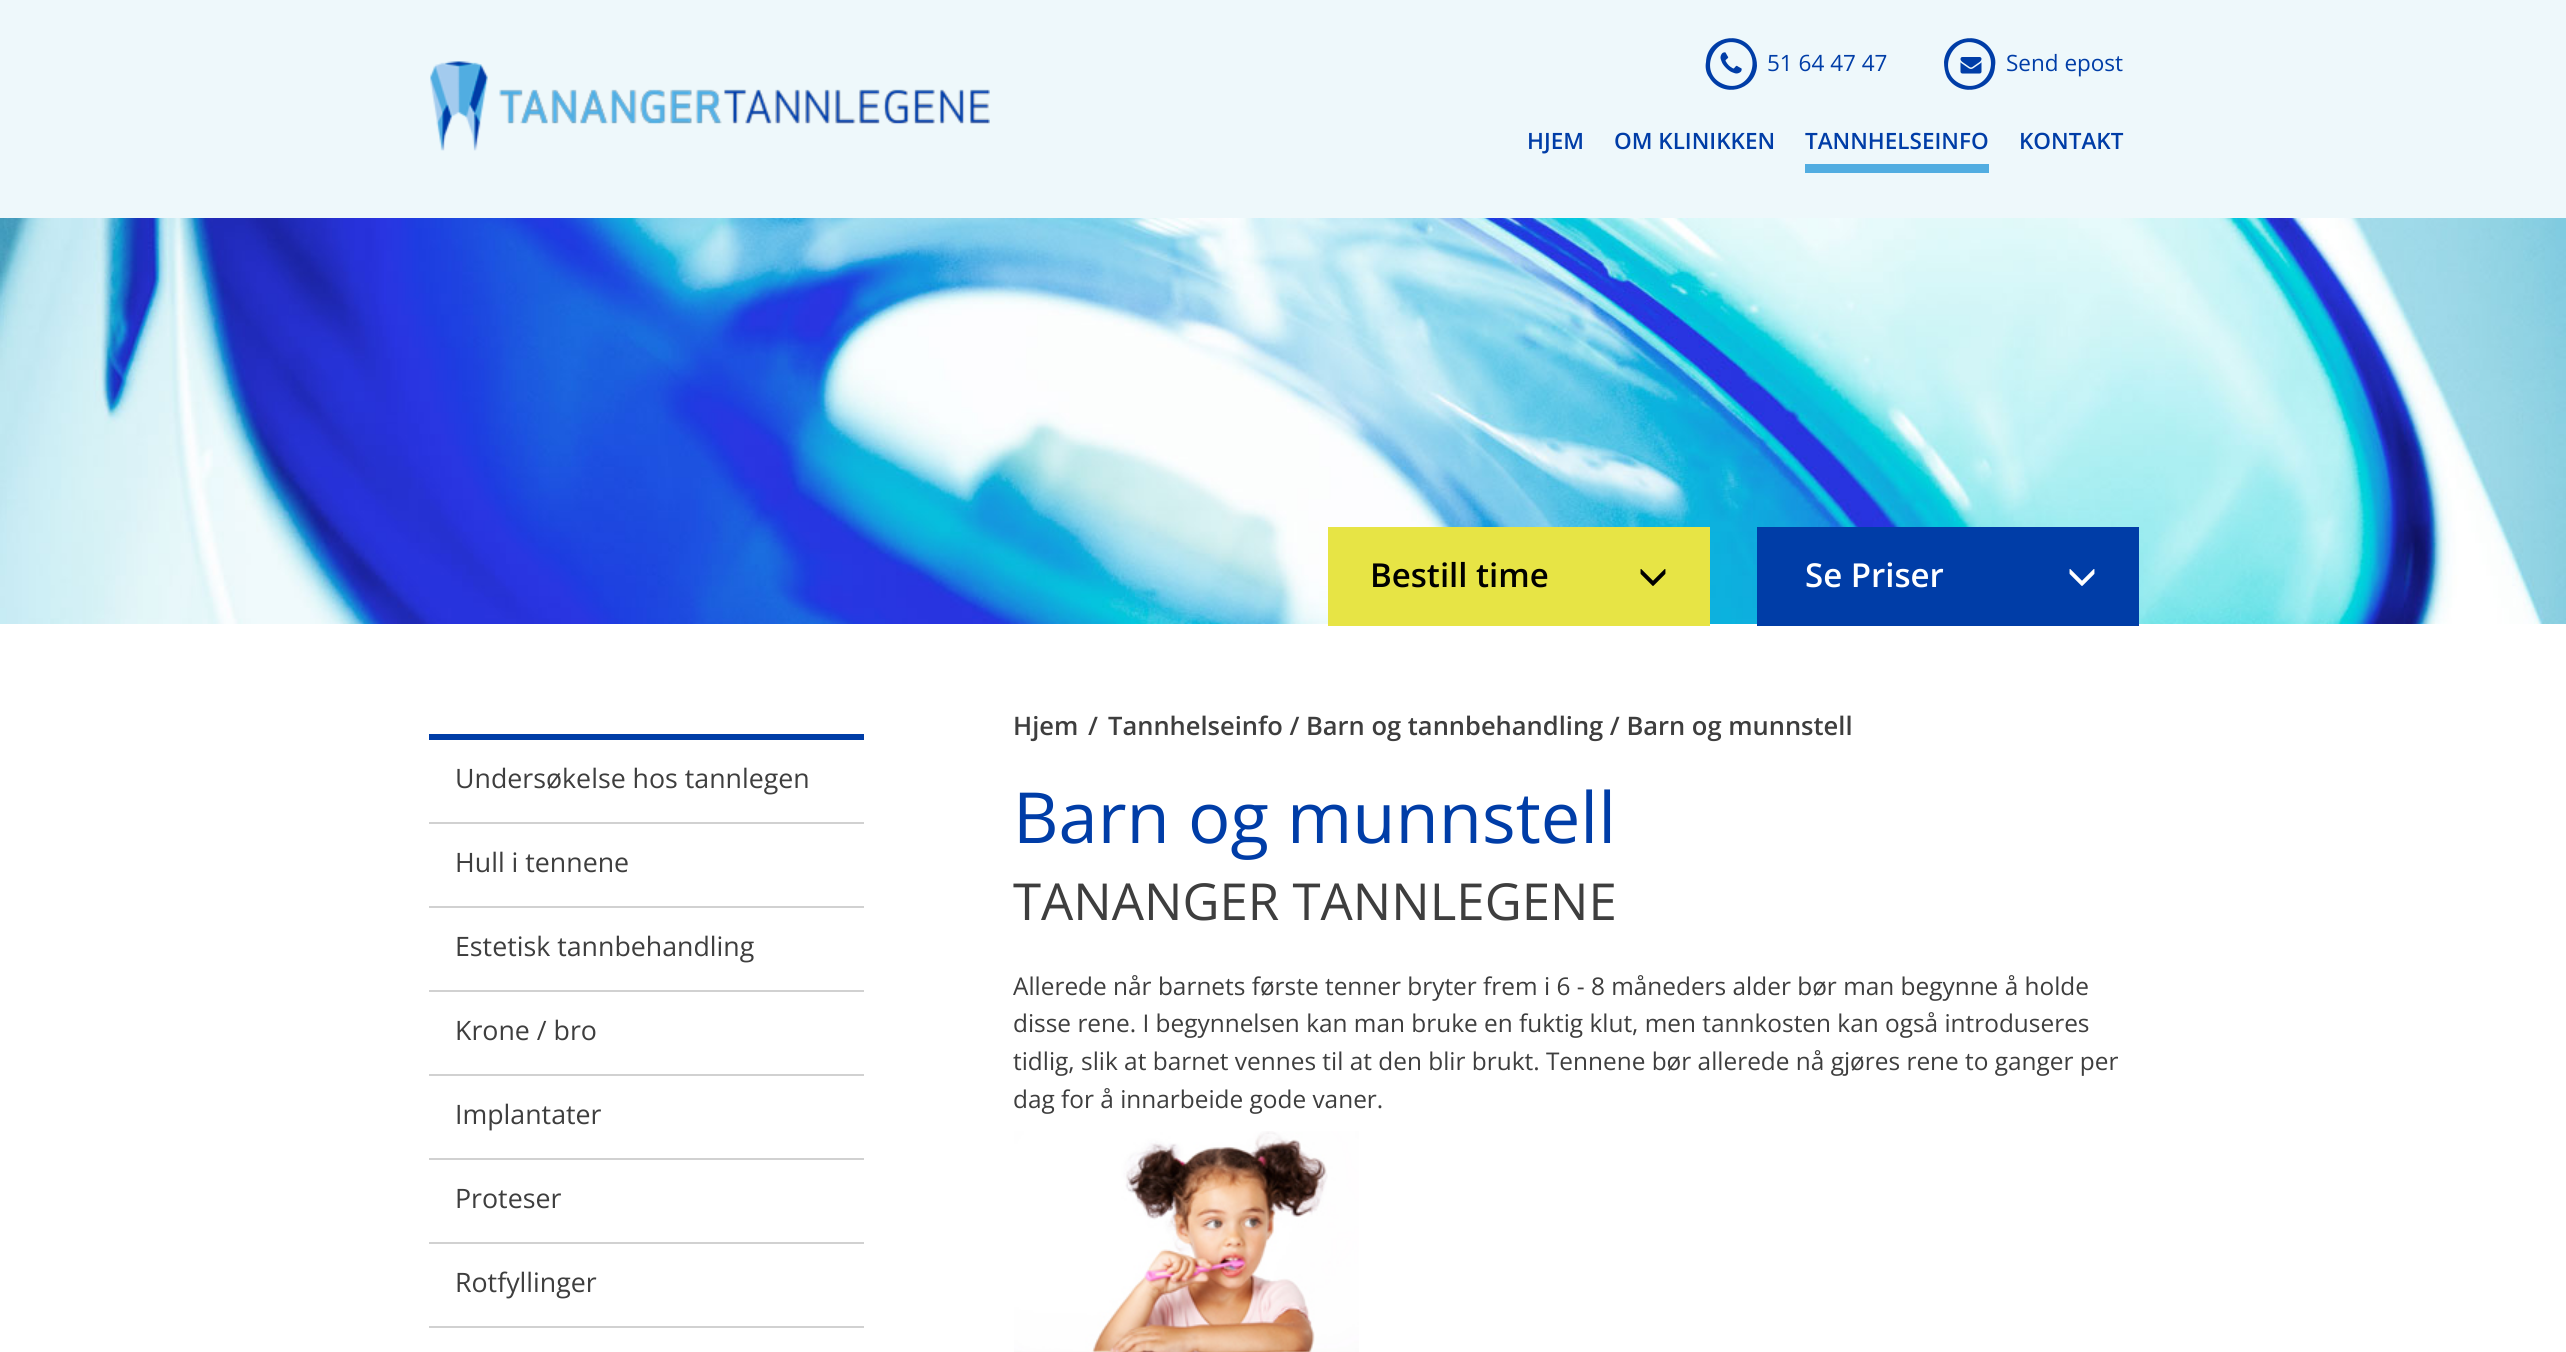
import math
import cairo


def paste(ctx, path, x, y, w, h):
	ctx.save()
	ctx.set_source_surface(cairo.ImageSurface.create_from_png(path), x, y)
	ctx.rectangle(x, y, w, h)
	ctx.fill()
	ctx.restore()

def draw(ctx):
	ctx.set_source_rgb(1, 1, 1)
	ctx.paint()
	ctx.set_source_rgb(0.933, 0.969, 0.984)
	ctx.rectangle(0, 0, 2566, 218)
	ctx.fill()
	paste(ctx, 'media/1.png', 430, 61, 560, 90)
	ctx.set_source_rgb(0, 0.239, 0.655)
	ctx.new_path()
	ctx.move_to(1740, 44)
	ctx.curve_to(1714, 33, 1697, 73, 1723, 84)
	ctx.curve_to(1749, 95, 1765, 56, 1740, 44)
	ctx.close_path()
	ctx.move_to(1753, 51)
	ctx.curve_to(1756, 56, 1757, 61, 1757, 66)
	ctx.curve_to(1755, 91, 1722, 99, 1709, 77)
	ctx.curve_to(1706, 73, 1705, 67, 1706, 62)
	ctx.curve_to(1707, 37, 1741, 29, 1753, 51)
	ctx.close_path()
	ctx.fill()
	paste(ctx, 'media/2.png', 1720, 52, 22, 22)
	ctx.select_font_face('Open Sans')
	ctx.set_font_size(22.5)
	ctx.move_to(1767, 71)
	ctx.show_text('51 64 47 47')
	ctx.new_path()
	ctx.move_to(1978, 44)
	ctx.curve_to(1952, 33, 1935, 73, 1961, 84)
	ctx.curve_to(1987, 95, 2004, 56, 1978, 44)
	ctx.close_path()
	ctx.move_to(1992, 51)
	ctx.curve_to(1995, 56, 1996, 61, 1995, 66)
	ctx.curve_to(1994, 91, 1960, 99, 1947, 77)
	ctx.curve_to(1945, 73, 1944, 67, 1944, 62)
	ctx.curve_to(1946, 37, 1979, 29, 1992, 51)
	ctx.close_path()
	ctx.fill()
	paste(ctx, 'media/3.png', 1960, 57, 22, 17)
	ctx.move_to(2006, 71)
	ctx.show_text('Send epost')
	ctx.select_font_face('Open Sans SemiBold')
	ctx.move_to(1527, 149)
	ctx.show_text('HJEM')
	ctx.move_to(1614, 149)
	ctx.show_text('OM KLINIKKEN')
	ctx.set_source_rgb(0.318, 0.678, 0.882)
	ctx.rectangle(1805, 164, 184, 9)
	ctx.fill()
	ctx.set_source_rgb(0, 0.239, 0.655)
	ctx.move_to(1805, 149)
	ctx.show_text('TANNHELSEINFO')
	ctx.move_to(2019, 149)
	ctx.show_text('KONTAKT')
	paste(ctx, 'media/4.png', 0, 218, 2566, 406)
	ctx.set_source_rgb(0.906, 0.894, 0.271)
	ctx.rectangle(1328, 527, 382, 99)
	ctx.fill()
	ctx.set_font_size(33)
	ctx.set_source_rgb(0, 0, 0)
	ctx.move_to(1370, 587)
	ctx.show_text('Bestill time')
	paste(ctx, 'media/5.png', 1640, 569, 26, 17)
	ctx.set_source_rgb(0, 0.239, 0.655)
	ctx.rectangle(1757, 527, 382, 99)
	ctx.fill()
	ctx.set_source_rgb(1, 1, 1)
	ctx.move_to(1805, 587)
	ctx.show_text('Se Priser')
	paste(ctx, 'media/6.png', 2069, 569, 26, 17)
	ctx.set_font_size(25.5)
	ctx.set_source_rgb(0.243, 0.243, 0.243)
	for x, y, s in [
		(1013, 735, 'Hjem'),
		(1088, 735, '/'),
		(1108, 735, 'Tannhelseinfo / Barn og tannbehandling / Barn og munnstell'),
	]:
		ctx.move_to(x, y)
		ctx.show_text(s)
	ctx.set_source_rgb(0, 0.239, 0.655)
	ctx.rectangle(429, 734, 435, 6)
	ctx.fill()
	ctx.set_source_rgb(0.82, 0.82, 0.82)
	ctx.rectangle(429, 822, 435, 2)
	ctx.fill()
	ctx.select_font_face('Open Sans')
	ctx.set_font_size(26.75)
	ctx.set_source_rgb(0.243, 0.243, 0.243)
	ctx.move_to(455, 788)
	ctx.show_text('Undersøkelse hos tannlegen')
	ctx.set_source_rgb(0.82, 0.82, 0.82)
	ctx.rectangle(429, 906, 435, 2)
	ctx.fill()
	ctx.set_source_rgb(0.243, 0.243, 0.243)
	ctx.move_to(455, 872)
	ctx.show_text('Hull i tennene')
	ctx.set_source_rgb(0.82, 0.82, 0.82)
	ctx.rectangle(429, 990, 435, 2)
	ctx.fill()
	ctx.set_source_rgb(0.243, 0.243, 0.243)
	ctx.move_to(455, 956)
	ctx.show_text('Estetisk tannbehandling')
	ctx.set_source_rgb(0.82, 0.82, 0.82)
	ctx.rectangle(429, 1074, 435, 2)
	ctx.fill()
	ctx.set_source_rgb(0.243, 0.243, 0.243)
	ctx.move_to(455, 1040)
	ctx.show_text('Krone / bro')
	ctx.set_source_rgb(0.82, 0.82, 0.82)
	ctx.rectangle(429, 1158, 435, 2)
	ctx.fill()
	ctx.set_source_rgb(0.243, 0.243, 0.243)
	ctx.move_to(455, 1124)
	ctx.show_text('Implantater')
	ctx.set_source_rgb(0.82, 0.82, 0.82)
	ctx.rectangle(429, 1242, 435, 2)
	ctx.fill()
	ctx.set_source_rgb(0.243, 0.243, 0.243)
	ctx.move_to(455, 1208)
	ctx.show_text('Proteser')
	ctx.set_source_rgb(0.82, 0.82, 0.82)
	ctx.rectangle(429, 1326, 435, 2)
	ctx.fill()
	ctx.set_source_rgb(0.243, 0.243, 0.243)
	ctx.move_to(455, 1292)
	ctx.show_text('Rotfyllinger')
	ctx.set_font_size(70.5)
	ctx.set_source_rgb(0, 0.239, 0.655)
	ctx.move_to(1013, 843)
	ctx.show_text('Barn og munnstell')
	ctx.set_font_size(51)
	ctx.set_source_rgb(0.243, 0.243, 0.243)
	ctx.move_to(1013, 920)
	ctx.show_text('TANANGER TANNLEGENE')
	ctx.set_font_size(24.4)
	for x, y, s in [
		(1013, 995, 'Allerede når barnets første tenner bryter frem i 6 - 8 måneders alder bør man begynne å holde'),
		(1013, 1032, 'disse rene. I begynnelsen kan man bruke en fuktig klut, men tannkosten kan også introduseres'),
		(1013, 1070, 'tidlig, slik at barnet vennes til at den blir brukt. Tennene bør allerede nå gjøres rene to ganger per'),
		(1013, 1108, 'dag for å innarbeide gode vaner.'),
	]:
		ctx.move_to(x, y)
		ctx.show_text(s)
	paste(ctx, 'media/7.png', 1014, 1131, 345, 221)


surface = cairo.ImageSurface(cairo.FORMAT_RGB24, 2566, 1352)
ctx = cairo.Context(surface)
options = cairo.FontOptions()
options.set_hint_metrics(cairo.HINT_METRICS_OFF)
options.set_hint_style(cairo.HINT_STYLE_NONE)
ctx.set_font_options(options)
ctx.set_miter_limit(4)
draw(ctx)
surface.write_to_png('image.png')
